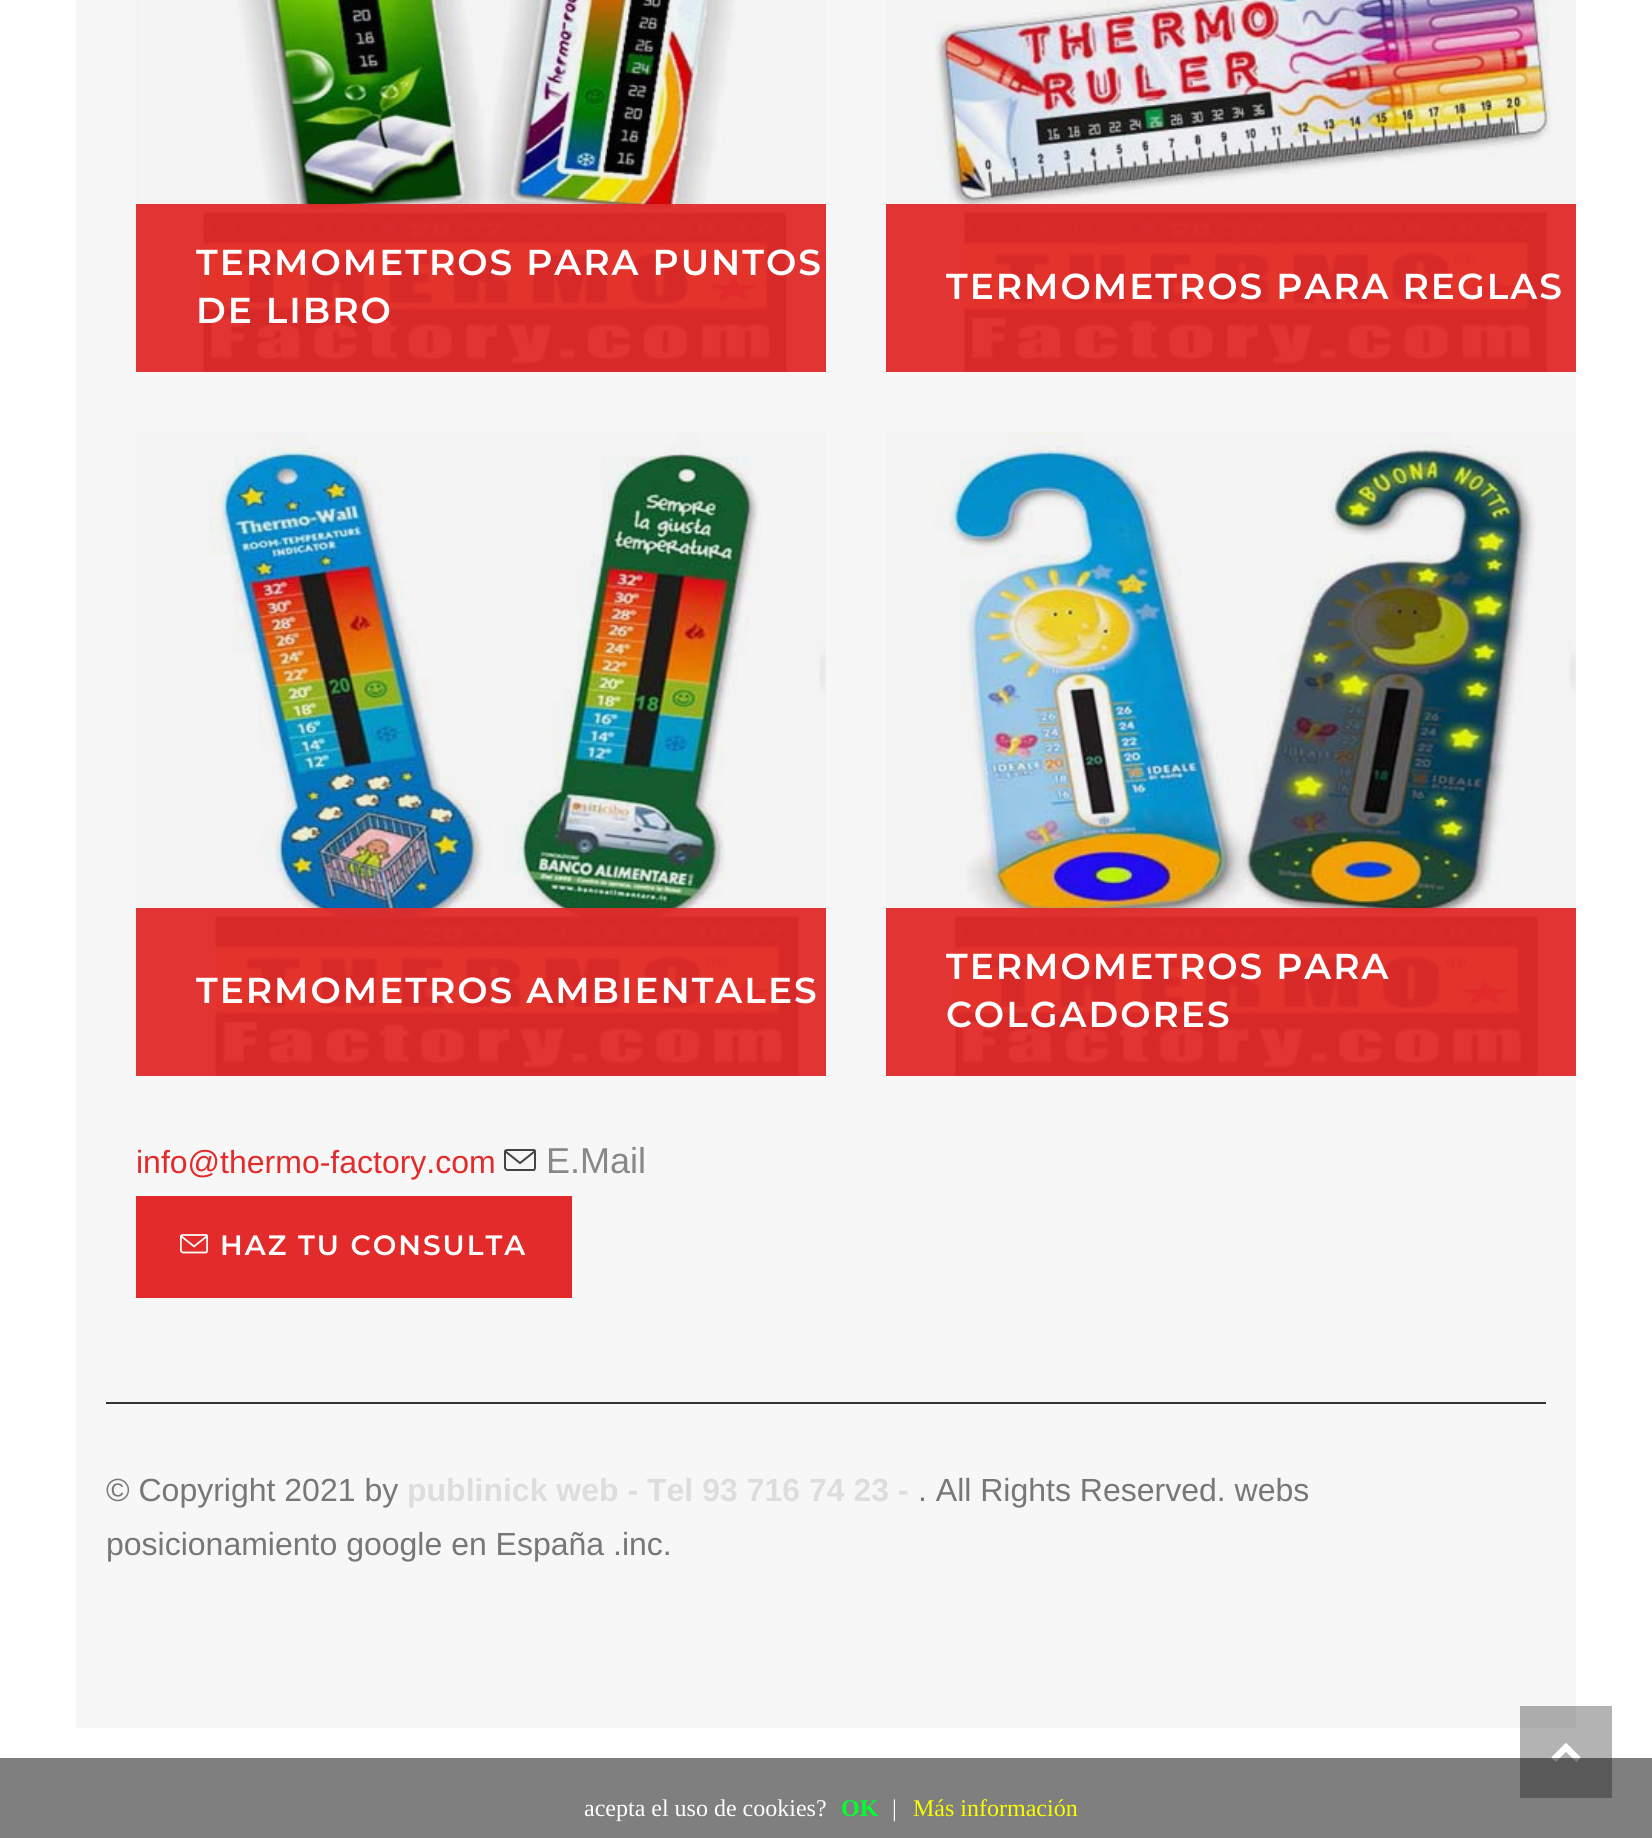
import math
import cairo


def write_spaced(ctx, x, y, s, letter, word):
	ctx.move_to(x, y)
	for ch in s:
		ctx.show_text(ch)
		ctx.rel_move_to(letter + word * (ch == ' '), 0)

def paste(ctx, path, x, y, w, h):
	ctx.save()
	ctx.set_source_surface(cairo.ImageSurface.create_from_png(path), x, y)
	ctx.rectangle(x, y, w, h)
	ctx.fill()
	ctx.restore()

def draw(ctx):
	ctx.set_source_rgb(1, 1, 1)
	ctx.paint()
	ctx.set_source_rgb(0.702, 0.702, 0.702)
	ctx.rectangle(1520, 1706, 92, 92)
	ctx.fill()
	ctx.set_source_rgb(0.965, 0.965, 0.965)
	ctx.rectangle(76, 0, 1500, 1728)
	ctx.fill()
	ctx.set_source_rgb(0.675, 0.675, 0.675)
	ctx.rectangle(1520, 1706, 56, 22)
	ctx.fill()
	paste(ctx, 'media/1.png', 136, 0, 690, 372)
	ctx.set_source_rgba(0.89, 0.169, 0.169, 0.95)
	ctx.rectangle(136, 204, 690, 168)
	ctx.fill()
	ctx.select_font_face('Montserrat SemiBold')
	ctx.set_font_size(36)
	ctx.set_source_rgb(1, 1, 1)
	write_spaced(ctx, 196, 275, 'TERMOMETROS PARA PUNTOS', 2, 0)
	write_spaced(ctx, 196, 323, 'DE LIBRO', 2, 0)
	paste(ctx, 'media/2.png', 886, 0, 690, 372)
	ctx.set_source_rgba(0.89, 0.169, 0.169, 0.95)
	ctx.rectangle(886, 204, 690, 168)
	ctx.fill()
	ctx.set_source_rgb(1, 1, 1)
	write_spaced(ctx, 946, 299, 'TERMOMETROS PARA REGLAS', 2, 0)
	paste(ctx, 'media/3.png', 136, 432, 690, 644)
	ctx.set_source_rgba(0.89, 0.169, 0.169, 0.95)
	ctx.rectangle(136, 908, 690, 168)
	ctx.fill()
	ctx.set_source_rgb(1, 1, 1)
	write_spaced(ctx, 196, 1003, 'TERMOMETROS AMBIENTALES', 2, 0)
	paste(ctx, 'media/4.png', 886, 432, 690, 644)
	ctx.set_source_rgba(0.89, 0.169, 0.169, 0.95)
	ctx.rectangle(886, 908, 690, 168)
	ctx.fill()
	ctx.set_source_rgb(1, 1, 1)
	write_spaced(ctx, 946, 979, 'TERMOMETROS PARA', 2, 0)
	write_spaced(ctx, 946, 1027, 'COLGADORES', 2, 0)
	ctx.select_font_face('Liberation Sans')
	ctx.set_font_size(32)
	ctx.set_source_rgb(0.89, 0.169, 0.169)
	ctx.move_to(136, 1173)
	ctx.show_text('info@thermo-factory.com')
	paste(ctx, 'media/5.png', 504, 1149, 32, 22)
	ctx.set_font_size(36)
	ctx.set_source_rgb(0.533, 0.533, 0.533)
	ctx.move_to(546, 1173)
	ctx.show_text('E.Mail')
	ctx.set_source_rgb(0.89, 0.169, 0.169)
	ctx.rectangle(136, 1196, 436, 102)
	ctx.fill()
	paste(ctx, 'media/6.png', 180, 1234, 28, 20)
	ctx.select_font_face('Montserrat SemiBold')
	ctx.set_font_size(28)
	ctx.set_source_rgb(1, 1, 1)
	write_spaced(ctx, 220, 1255, 'HAZ TU CONSULTA', 2, 0)
	ctx.set_source_rgb(0.2, 0.2, 0.2)
	ctx.rectangle(106, 1402, 1440, 2)
	ctx.fill()
	ctx.select_font_face('Liberation Sans')
	ctx.set_font_size(32)
	ctx.set_source_rgb(0.467, 0.467, 0.467)
	ctx.move_to(106, 1501)
	ctx.show_text('© Copyright 2021 by')
	ctx.select_font_face('Liberation Sans', cairo.FONT_SLANT_NORMAL, cairo.FONT_WEIGHT_BOLD)
	ctx.set_source_rgb(0.867, 0.867, 0.867)
	ctx.move_to(407, 1501)
	ctx.show_text('publinick web - Tel 93 716 74 23 -')
	ctx.select_font_face('Liberation Sans')
	ctx.set_source_rgb(0.467, 0.467, 0.467)
	ctx.move_to(918, 1501)
	ctx.show_text('. All Rights Reserved. webs')
	ctx.move_to(106, 1555)
	ctx.show_text('posicionamiento google en España .inc.')
	paste(ctx, 'media/7.png', 1551, 1743, 30, 19)
	ctx.set_source_rgba(0, 0, 0, 0.5)
	ctx.rectangle(0, 1758, 1652, 80)
	ctx.fill()
	ctx.select_font_face('Liberation Serif')
	ctx.set_font_size(24)
	ctx.set_source_rgb(1, 1, 1)
	ctx.move_to(584, 1816)
	ctx.show_text('acepta el uso de cookies?')
	ctx.select_font_face('Liberation Serif', cairo.FONT_SLANT_NORMAL, cairo.FONT_WEIGHT_BOLD)
	ctx.set_source_rgb(0, 1, 0.18)
	ctx.move_to(841, 1816)
	ctx.show_text('OK')
	ctx.select_font_face('Liberation Serif')
	ctx.set_source_rgb(1, 1, 1)
	ctx.move_to(892, 1816)
	ctx.show_text('|')
	ctx.set_source_rgb(0.98, 1, 0)
	ctx.move_to(913, 1816)
	ctx.show_text('Más información')


surface = cairo.ImageSurface(cairo.FORMAT_RGB24, 1652, 1838)
ctx = cairo.Context(surface)
options = cairo.FontOptions()
options.set_hint_metrics(cairo.HINT_METRICS_OFF)
options.set_hint_style(cairo.HINT_STYLE_NONE)
ctx.set_font_options(options)
ctx.set_miter_limit(4)
draw(ctx)
surface.write_to_png('image.png')
